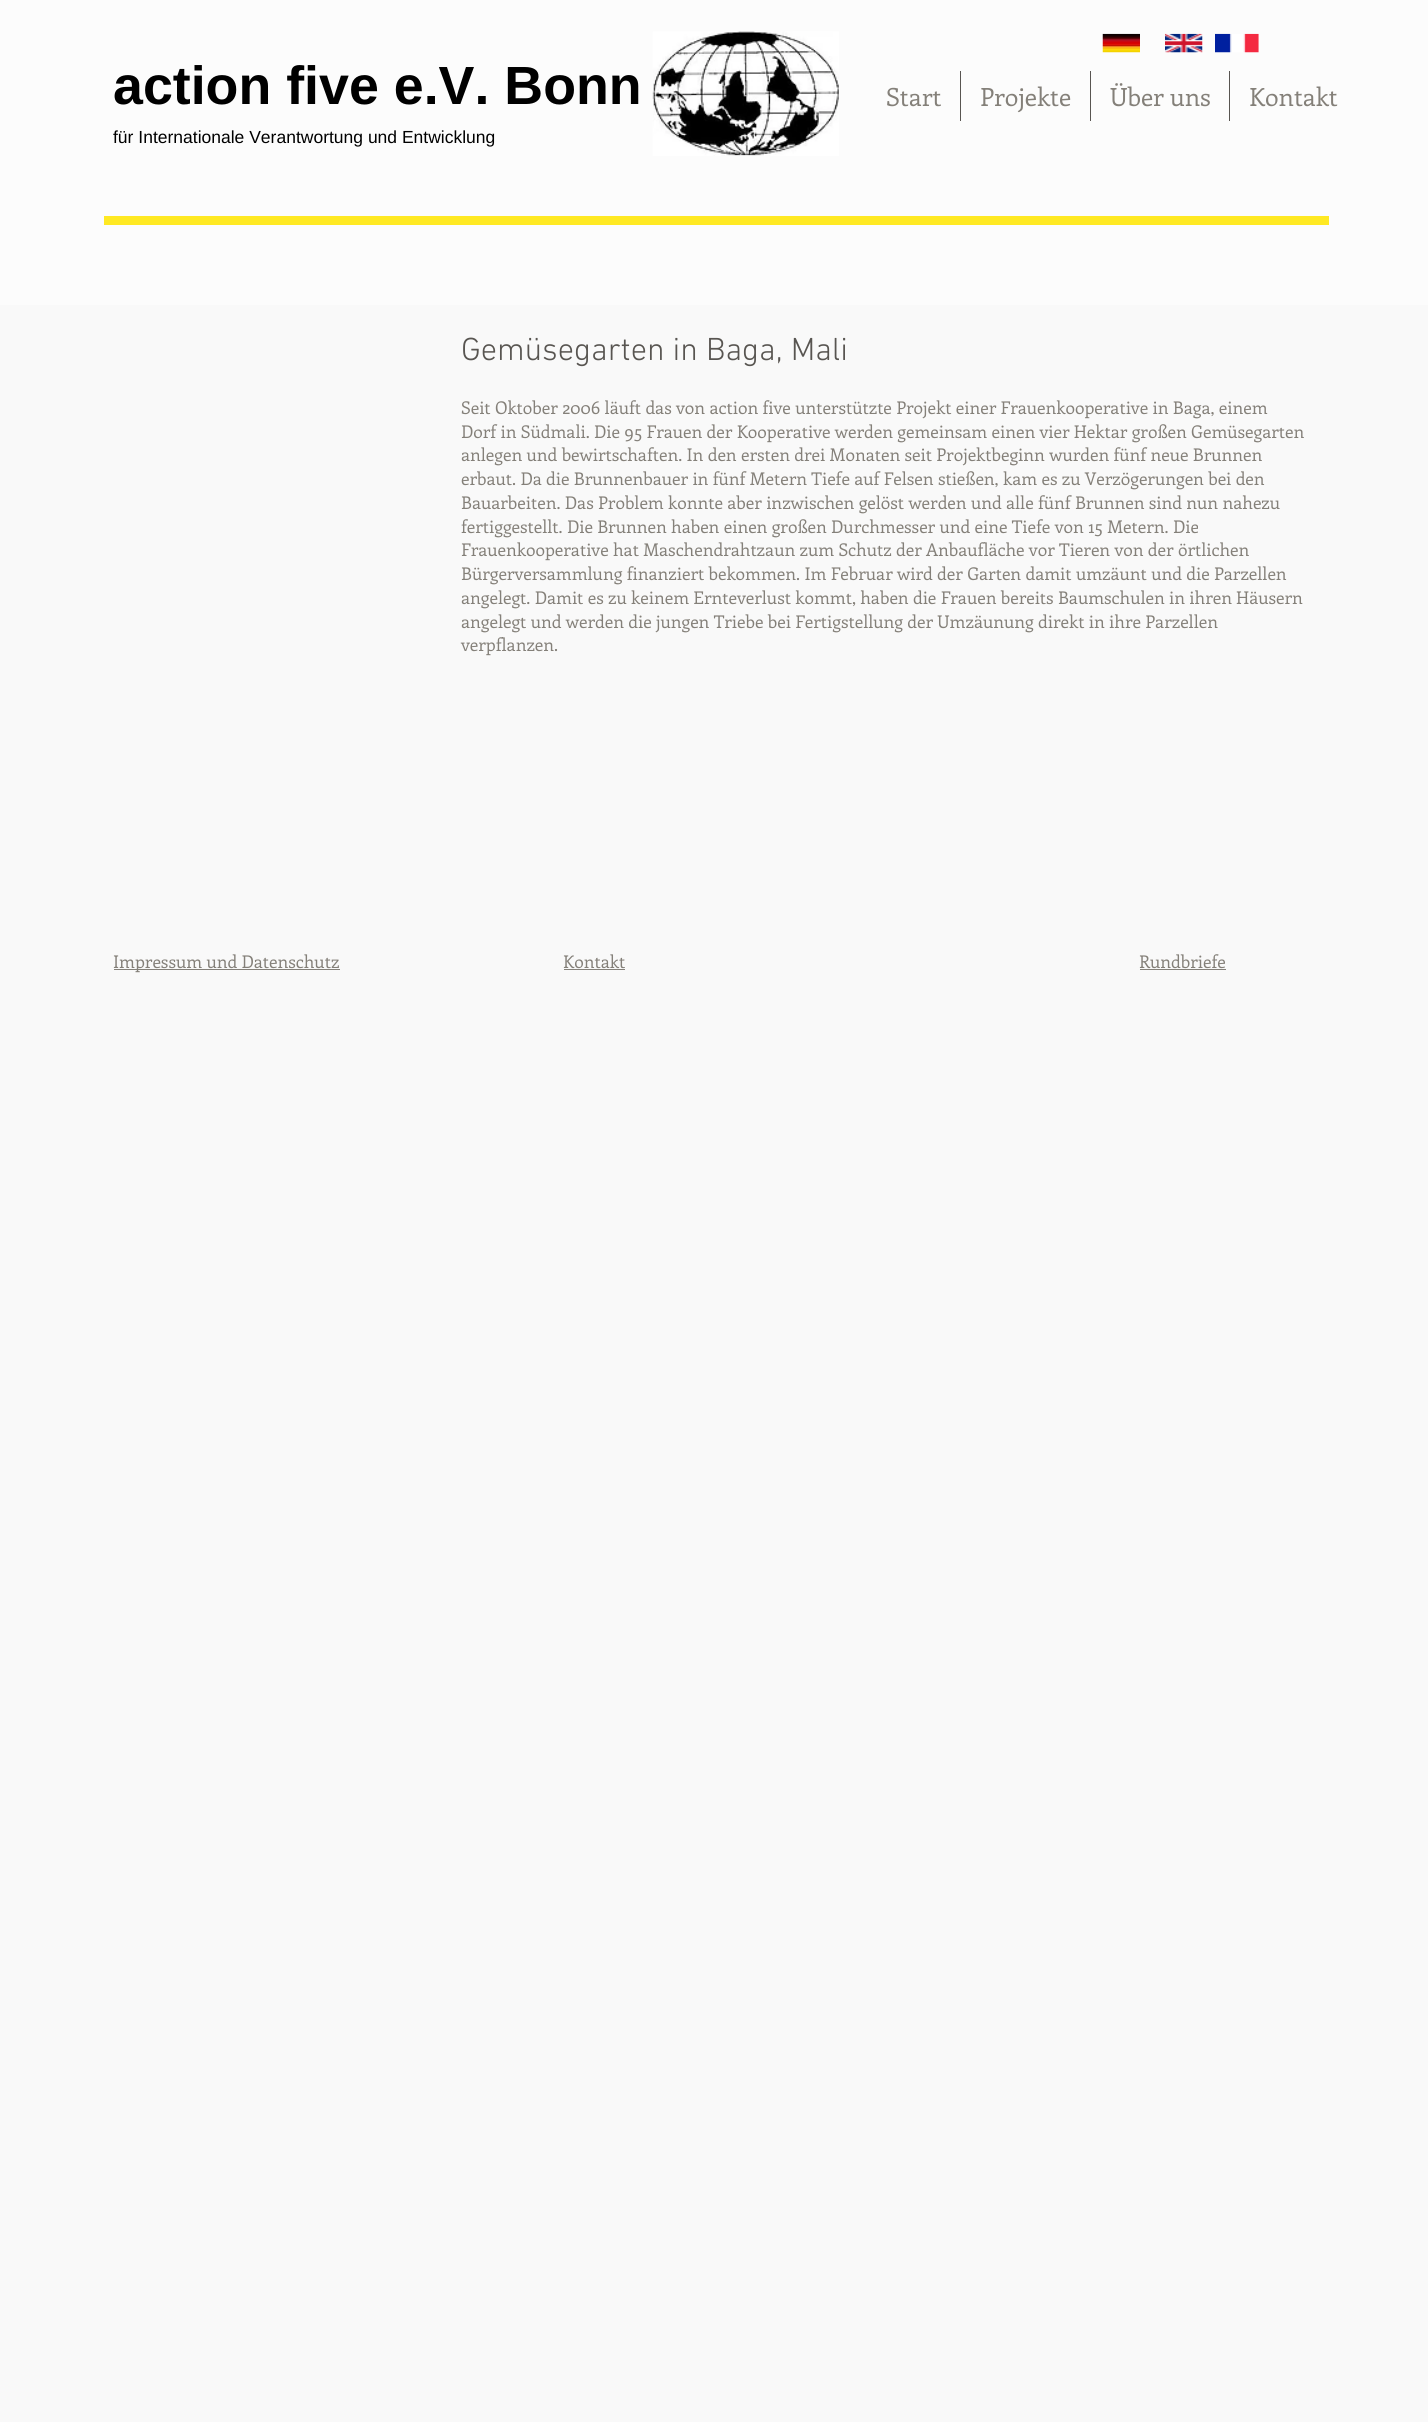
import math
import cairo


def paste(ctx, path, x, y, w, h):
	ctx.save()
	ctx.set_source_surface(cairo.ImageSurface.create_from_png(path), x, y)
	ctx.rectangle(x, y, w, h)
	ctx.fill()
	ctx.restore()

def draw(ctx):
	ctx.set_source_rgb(0.973, 0.973, 0.973)
	ctx.paint()
	ctx.set_source_rgb(0.988, 0.988, 0.988)
	ctx.rectangle(0, 0, 1428, 305)
	ctx.fill()
	paste(ctx, 'media/1.png', 652, 31, 187, 125)
	paste(ctx, 'media/2.png', 1102, 33, 38, 20)
	paste(ctx, 'media/3.png', 1165, 33, 38, 20)
	paste(ctx, 'media/4.png', 1215, 33, 44, 20)
	ctx.select_font_face('Liberation Sans', cairo.FONT_SLANT_NORMAL, cairo.FONT_WEIGHT_BOLD)
	ctx.set_font_size(53.75)
	ctx.set_source_rgb(0, 0, 0)
	ctx.move_to(113, 104)
	ctx.show_text('action five e.V. Bonn')
	ctx.select_font_face('Liberation Sans')
	ctx.set_font_size(17.5)
	ctx.move_to(113, 143)
	ctx.show_text('für Internationale Verantwortung und Entwicklung')
	ctx.set_source_rgb(1, 0.914, 0.137)
	ctx.rectangle(104, 216, 1225, 9)
	ctx.fill()
	ctx.select_font_face('Enriqueta')
	ctx.set_font_size(25)
	ctx.set_source_rgb(0.518, 0.502, 0.475)
	ctx.move_to(886, 106)
	ctx.show_text('Start')
	ctx.set_source_rgb(0.345, 0.333, 0.318)
	ctx.rectangle(960, 71, 1, 50)
	ctx.fill()
	ctx.set_source_rgb(0.518, 0.502, 0.475)
	ctx.move_to(980, 106)
	ctx.show_text('Projekte')
	ctx.set_source_rgb(0.345, 0.333, 0.318)
	ctx.rectangle(1090, 71, 1, 50)
	ctx.fill()
	ctx.set_source_rgb(0.518, 0.502, 0.475)
	ctx.move_to(1110, 106)
	ctx.show_text('Über uns')
	ctx.set_source_rgb(0.345, 0.333, 0.318)
	ctx.rectangle(1229, 71, 1, 50)
	ctx.fill()
	ctx.set_source_rgb(0.518, 0.502, 0.475)
	ctx.move_to(1249, 106)
	ctx.show_text('Kontakt')
	ctx.select_font_face('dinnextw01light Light')
	ctx.set_font_size(32.5)
	ctx.set_source_rgb(0.345, 0.333, 0.318)
	ctx.move_to(461, 360)
	ctx.show_text('Gemüsegarten in Baga, Mali')
	ctx.select_font_face('Enriqueta')
	ctx.set_font_size(17.5)
	ctx.set_source_rgb(0.518, 0.502, 0.475)
	for x, y, s in [
		(461, 414, 'Seit Oktober 2006 läuft das von action five unterstützte Projekt einer Frauenkooperative in Baga, einem'),
		(461, 438, 'Dorf in Südmali. Die 95 Frauen der Kooperative werden gemeinsam einen vier Hektar großen Gemüsegarten'),
		(461, 461, 'anlegen und bewirtschaften. In den ersten drei Monaten seit Projektbeginn wurden fünf neue Brunnen'),
		(461, 485, 'erbaut. Da die Brunnenbauer in fünf Metern Tiefe auf Felsen stießen, kam es zu Verzögerungen bei den'),
		(461, 509, 'Bauarbeiten. Das Problem konnte aber inzwischen gelöst werden und alle fünf Brunnen sind nun nahezu'),
		(461, 533, 'fertiggestellt. Die Brunnen haben einen großen Durchmesser und eine Tiefe von 15 Metern. Die'),
		(461, 556, 'Frauenkooperative hat Maschendrahtzaun zum Schutz der Anbaufläche vor Tieren von der örtlichen'),
		(461, 580, 'Bürgerversammlung finanziert bekommen. Im Februar wird der Garten damit umzäunt und die Parzellen'),
		(461, 604, 'angelegt. Damit es zu keinem Ernteverlust kommt, haben die Frauen bereits Baumschulen in ihren Häusern'),
		(461, 628, 'angelegt und werden die jungen Triebe bei Fertigstellung der Umzäunung direkt in ihre Parzellen'),
		(461, 651, 'verpflanzen.'),
	]:
		ctx.move_to(x, y)
		ctx.show_text(s)
	ctx.rectangle(114, 969, 226, 1)
	ctx.fill()
	ctx.move_to(113, 968)
	ctx.show_text('Impressum und Datenschutz')
	ctx.move_to(563, 968)
	ctx.show_text('Kontakt')
	ctx.rectangle(564, 969, 61, 1)
	ctx.fill()
	ctx.move_to(1139, 968)
	ctx.show_text('Rundbriefe')
	ctx.rectangle(1140, 969, 86, 1)
	ctx.fill()


surface = cairo.ImageSurface(cairo.FORMAT_RGB24, 1428, 2422)
ctx = cairo.Context(surface)
options = cairo.FontOptions()
options.set_hint_metrics(cairo.HINT_METRICS_OFF)
options.set_hint_style(cairo.HINT_STYLE_NONE)
ctx.set_font_options(options)
ctx.set_miter_limit(4)
draw(ctx)
surface.write_to_png('image.png')
